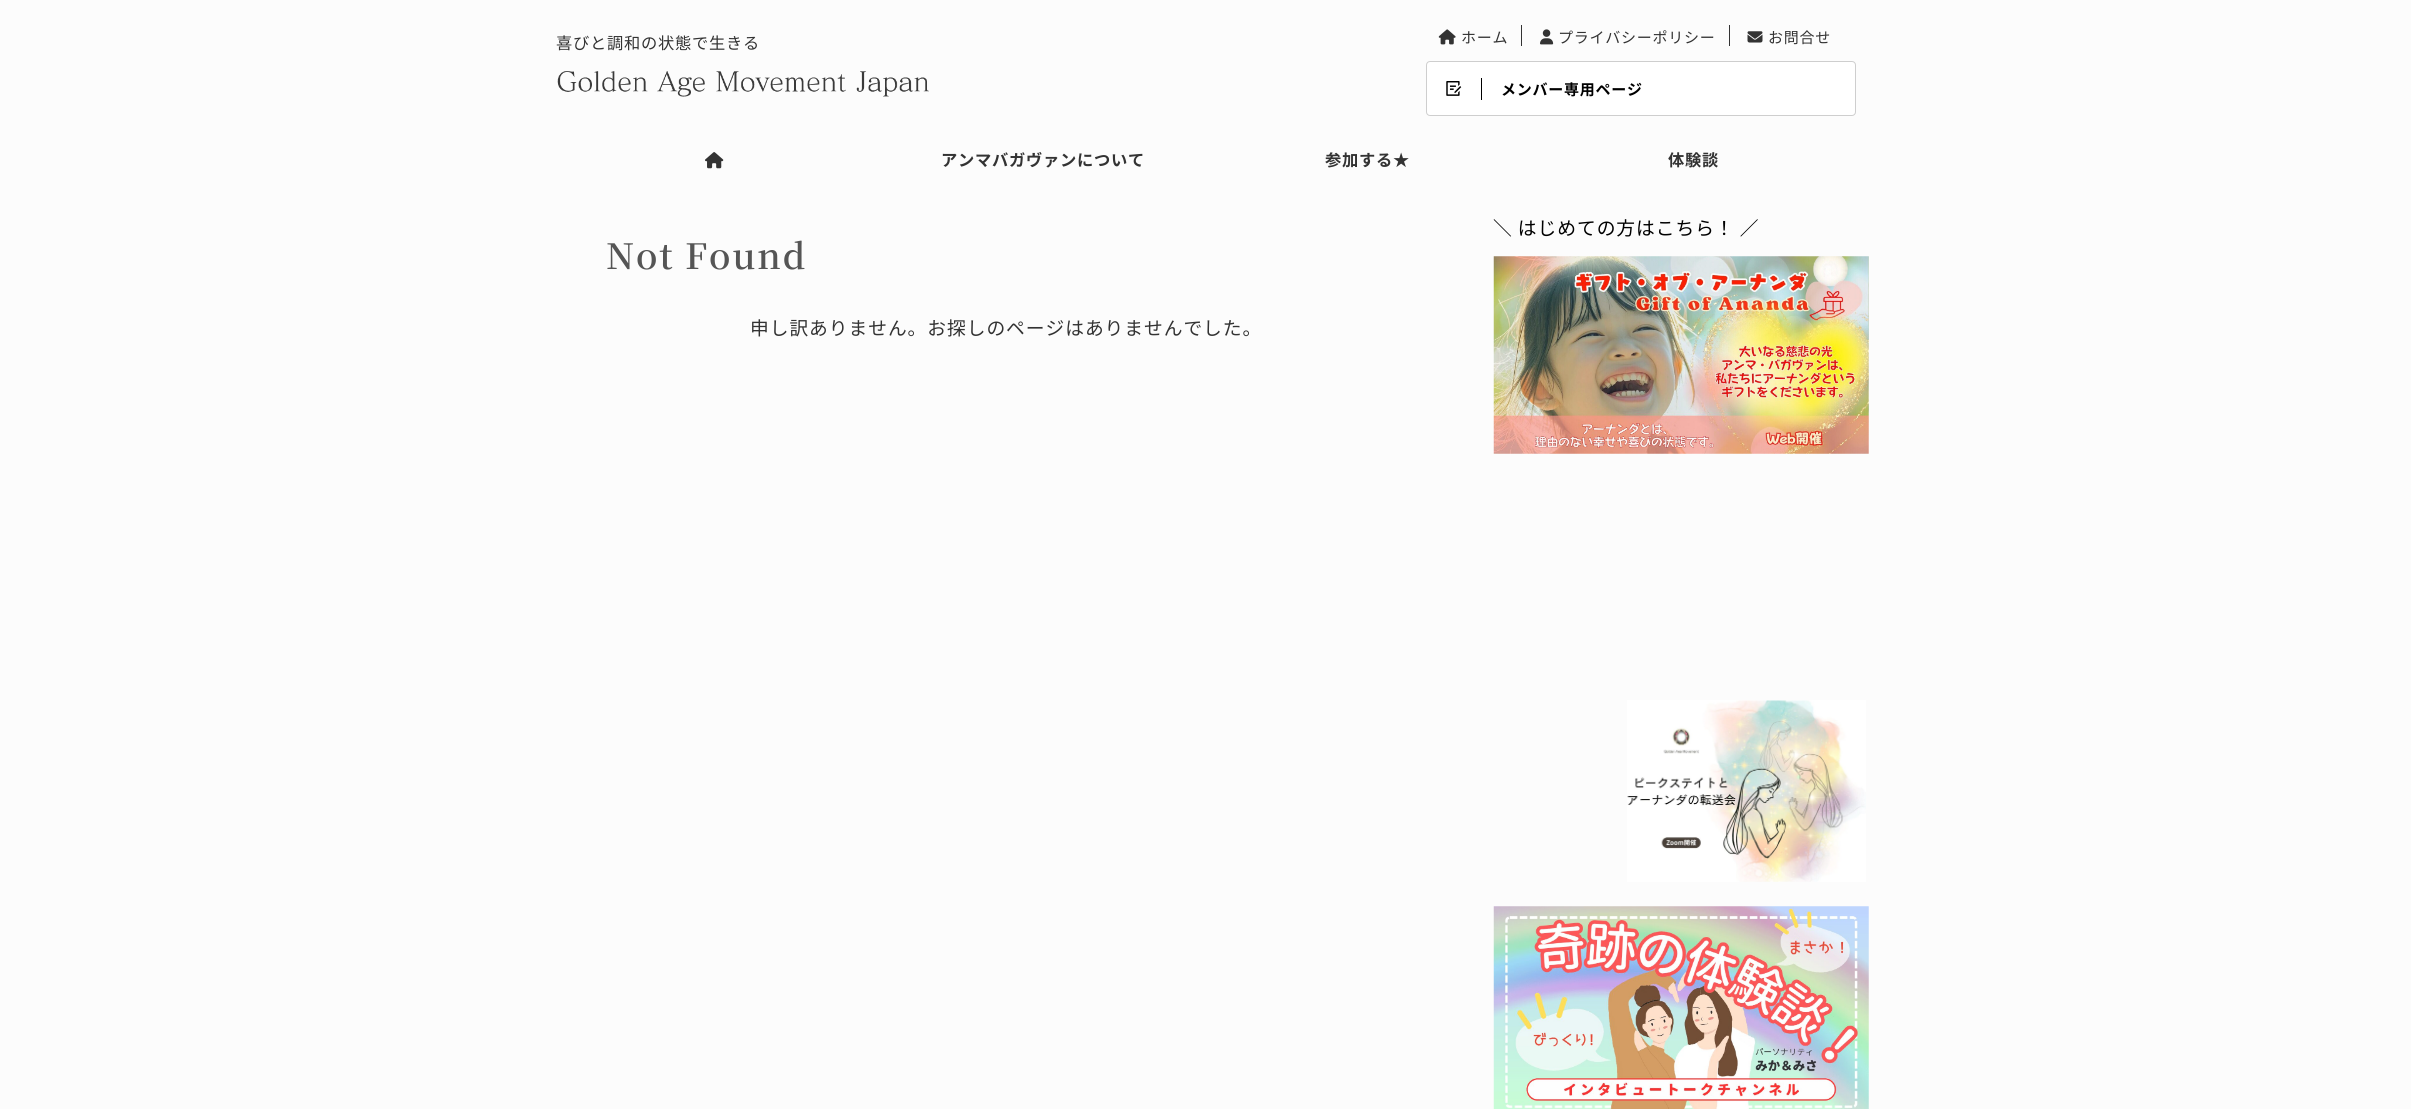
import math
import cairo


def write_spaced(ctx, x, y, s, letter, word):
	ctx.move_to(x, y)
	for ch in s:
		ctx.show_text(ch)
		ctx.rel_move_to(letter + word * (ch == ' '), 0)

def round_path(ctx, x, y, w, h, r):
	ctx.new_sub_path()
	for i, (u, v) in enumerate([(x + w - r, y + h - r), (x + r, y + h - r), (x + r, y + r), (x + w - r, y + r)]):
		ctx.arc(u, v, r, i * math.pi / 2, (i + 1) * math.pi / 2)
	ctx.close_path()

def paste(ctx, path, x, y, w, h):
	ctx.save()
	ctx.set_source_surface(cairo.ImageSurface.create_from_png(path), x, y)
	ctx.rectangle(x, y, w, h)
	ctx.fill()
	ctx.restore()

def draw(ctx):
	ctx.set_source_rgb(0.988, 0.988, 0.988)
	ctx.paint()
	ctx.select_font_face('Noto Sans JP')
	ctx.set_font_size(16.25)
	ctx.set_source_rgb(0.2, 0.2, 0.2)
	write_spaced(ctx, 556, 49, '喜びと調和の状態で生きる', 0.75, 0)
	paste(ctx, 'media/1.png', 557, 71, 372, 26)
	ctx.rectangle(1521, 25, 1, 21)
	ctx.fill()
	paste(ctx, 'media/2.png', 1438, 29, 18, 16)
	ctx.set_font_size(15)
	write_spaced(ctx, 1461, 43, 'ホーム', 0.75, 0)
	ctx.rectangle(1729, 25, 1, 21)
	ctx.fill()
	paste(ctx, 'media/3.png', 1540, 29, 14, 16)
	write_spaced(ctx, 1558, 43, 'プライバシーポリシー', 0.75, 0)
	paste(ctx, 'media/4.png', 1747, 31, 16, 12)
	write_spaced(ctx, 1768, 43, 'お問合せ', 0.75, 0)
	ctx.set_source_rgb(1, 1, 1)
	round_path(ctx, 1426.5, 61.5, 429, 54, 3.5)
	ctx.fill_preserve()
	ctx.set_source_rgb(0.808, 0.808, 0.808)
	ctx.set_line_width(1)
	ctx.stroke()
	ctx.set_source_rgb(0, 0, 0)
	ctx.rectangle(1481, 78, 1, 22)
	ctx.fill()
	paste(ctx, 'media/5.png', 1446, 81, 16, 15)
	ctx.select_font_face('Noto Sans JP', cairo.FONT_SLANT_NORMAL, cairo.FONT_WEIGHT_BOLD)
	write_spaced(ctx, 1501, 95, 'メンバー専用ページ', 0.75, 0)
	paste(ctx, 'media/6.png', 705, 152, 19, 17)
	ctx.set_font_size(16.25)
	ctx.set_source_rgb(0.2, 0.2, 0.2)
	for x, y, s in [
		(941, 166, 'アンマバガヴァンについて'),
		(1325, 166, '参加する★'),
		(1668, 166, '体験談'),
	]:
		write_spaced(ctx, x, y, s, 0.75, 0)
	ctx.select_font_face('Noto Sans JP')
	ctx.set_font_size(18.75)
	ctx.set_source_rgb(0, 0, 0)
	write_spaced(ctx, 1493, 235, '＼ はじめての方はこちら！ ／', 0.95, 0)
	paste(ctx, 'media/7.png', 1493, 256, 376, 198)
	paste(ctx, 'media/8.png', 1627, 700, 239, 182)
	paste(ctx, 'media/9.png', 1493, 906, 376, 203)
	ctx.select_font_face('Noto Serif JP SemiBold')
	ctx.set_font_size(35)
	ctx.set_source_rgb(0.333, 0.333, 0.333)
	write_spaced(ctx, 606, 269, 'Not Found', 1.75, 0)
	ctx.select_font_face('Noto Sans JP')
	ctx.set_font_size(18.75)
	ctx.set_source_rgb(0.2, 0.2, 0.2)
	write_spaced(ctx, 750, 335, '申し訳ありません。お探しのページはありませんでした。', 0.95, 0)


surface = cairo.ImageSurface(cairo.FORMAT_RGB24, 2411, 1109)
ctx = cairo.Context(surface)
options = cairo.FontOptions()
options.set_hint_metrics(cairo.HINT_METRICS_OFF)
options.set_hint_style(cairo.HINT_STYLE_NONE)
ctx.set_font_options(options)
ctx.set_miter_limit(4)
draw(ctx)
surface.write_to_png('image.png')
